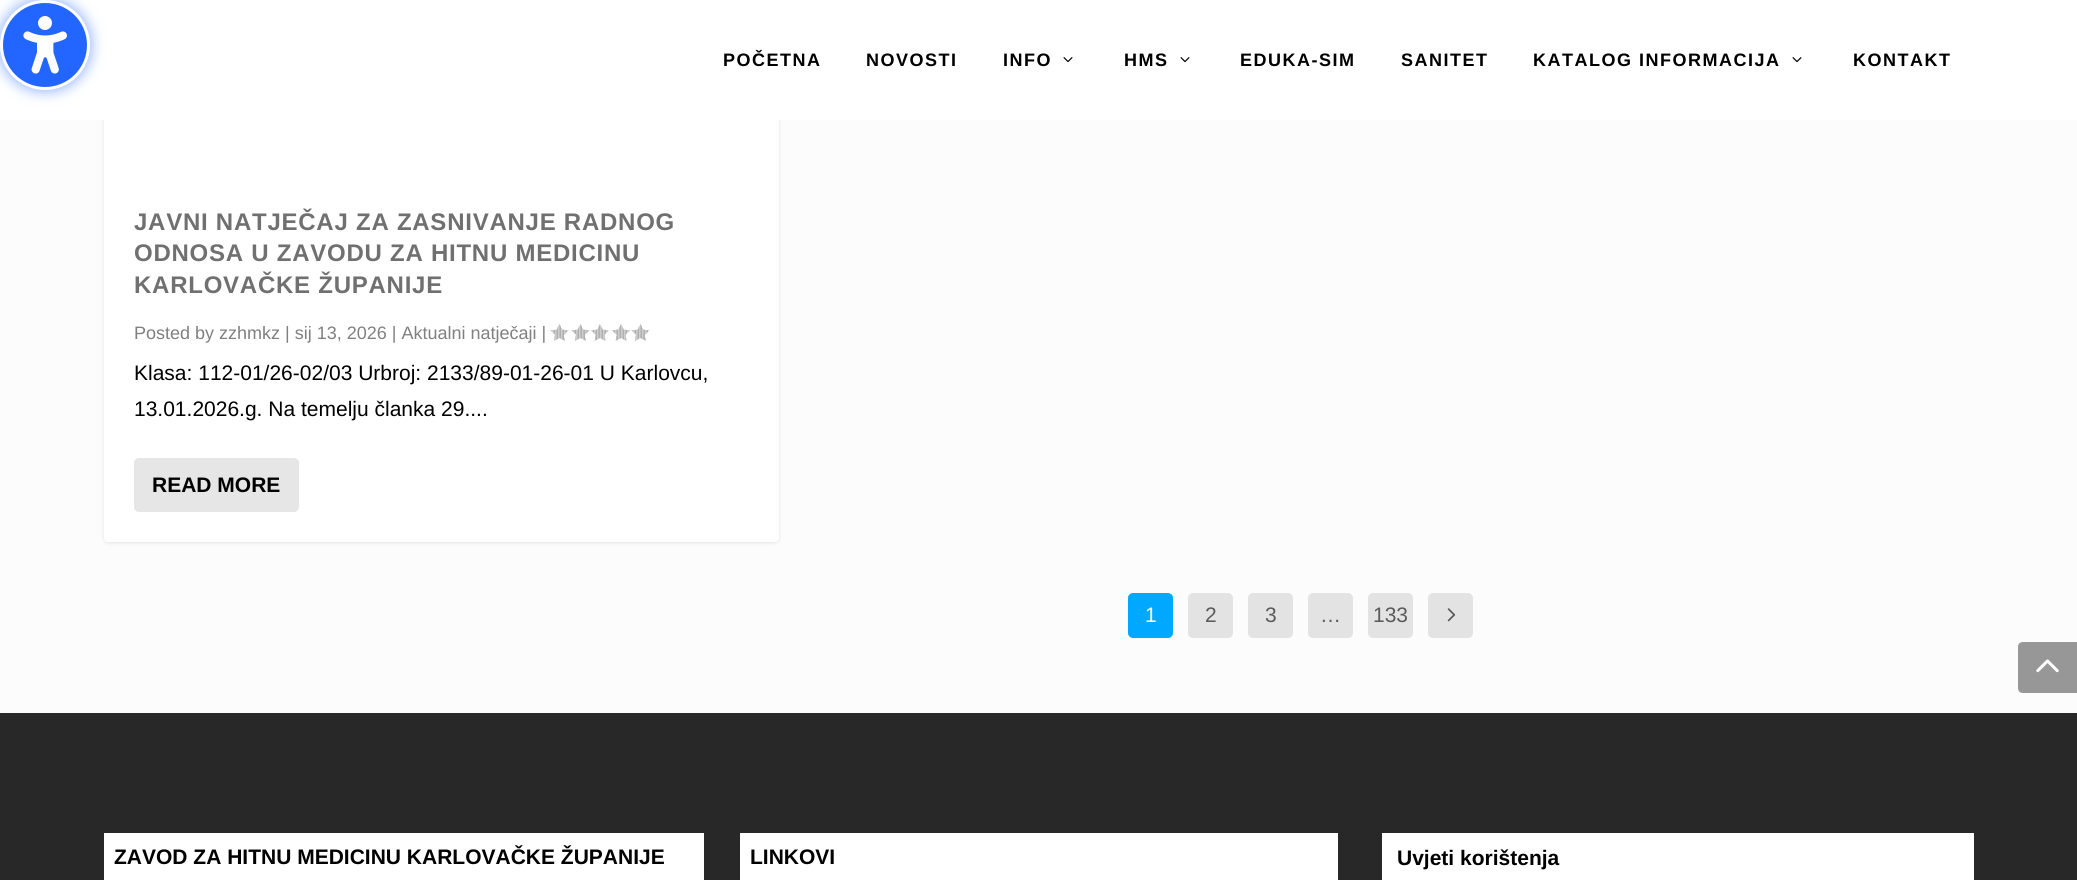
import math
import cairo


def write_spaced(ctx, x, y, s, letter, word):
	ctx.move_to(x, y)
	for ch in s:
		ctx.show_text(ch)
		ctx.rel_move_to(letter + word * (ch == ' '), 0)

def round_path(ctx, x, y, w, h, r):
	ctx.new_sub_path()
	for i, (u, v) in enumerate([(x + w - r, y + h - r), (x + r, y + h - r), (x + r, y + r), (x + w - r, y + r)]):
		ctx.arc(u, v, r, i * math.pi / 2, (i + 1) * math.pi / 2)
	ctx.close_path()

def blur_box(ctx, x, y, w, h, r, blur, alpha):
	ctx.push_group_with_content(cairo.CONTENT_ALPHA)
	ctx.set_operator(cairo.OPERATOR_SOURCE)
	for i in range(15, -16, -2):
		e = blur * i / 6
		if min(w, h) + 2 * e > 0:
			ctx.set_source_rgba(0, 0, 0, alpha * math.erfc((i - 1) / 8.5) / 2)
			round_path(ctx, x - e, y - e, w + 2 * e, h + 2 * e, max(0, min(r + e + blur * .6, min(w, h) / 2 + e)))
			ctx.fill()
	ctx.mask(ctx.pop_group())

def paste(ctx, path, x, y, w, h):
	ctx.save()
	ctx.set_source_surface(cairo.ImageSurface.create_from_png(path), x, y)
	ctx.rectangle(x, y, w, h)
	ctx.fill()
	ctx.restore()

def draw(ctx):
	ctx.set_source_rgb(0.988, 0.988, 0.988)
	ctx.paint()
	ctx.save()
	ctx.set_fill_rule(cairo.FILL_RULE_EVEN_ODD)
	ctx.new_path()
	ctx.move_to(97, 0)
	ctx.line_to(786, 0)
	ctx.line_to(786, 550)
	ctx.line_to(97, 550)
	ctx.close_path()
	ctx.move_to(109, -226)
	ctx.line_to(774, -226)
	ctx.curve_to(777, -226, 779, -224, 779, -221)
	ctx.line_to(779, 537)
	ctx.curve_to(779, 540, 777, 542, 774, 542)
	ctx.line_to(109, 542)
	ctx.curve_to(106, 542, 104, 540, 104, 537)
	ctx.line_to(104, -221)
	ctx.curve_to(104, -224, 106, -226, 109, -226)
	ctx.close_path()
	ctx.clip()
	ctx.set_source_rgb(0, 0, 0)
	blur_box(ctx, 104, -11, 675, 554, 5, 2, 0.1)
	ctx.restore()
	ctx.set_source_rgb(1, 1, 1)
	round_path(ctx, 104, -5, 675, 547, 5)
	ctx.fill()
	ctx.rectangle(0, 0, 2077, 120)
	ctx.fill()
	ctx.set_source_rgb(0.133, 0.4, 1)
	blur_box(ctx, -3, -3, 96, 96, 48, 6, 0.4)
	ctx.set_source_rgb(0.133, 0.4, 1)
	ctx.arc(45, 45, 43.5, 0, 2 * math.pi)
	ctx.fill_preserve()
	ctx.set_source_rgb(1, 1, 1)
	ctx.set_line_width(3)
	ctx.stroke()
	paste(ctx, 'media/1.png', 23, 16, 44, 58)
	ctx.select_font_face('Liberation Sans', cairo.FONT_SLANT_NORMAL, cairo.FONT_WEIGHT_BOLD)
	ctx.set_font_size(18)
	ctx.set_source_rgb(0, 0, 0)
	for x, y, s in [
		(723, 66, 'POČETNA'),
		(866, 66, 'NOVOSTI'),
		(1003, 66, 'INFO'),
	]:
		write_spaced(ctx, x, y, s, 1.5, 0)
	paste(ctx, 'media/2.png', 1063, 57, 10, 6)
	write_spaced(ctx, 1124, 66, 'HMS', 1.5, 0)
	paste(ctx, 'media/2.png', 1180, 57, 10, 6)
	for x, y, s in [
		(1240, 66, 'EDUKA-SIM'),
		(1401, 66, 'SANITET'),
		(1533, 66, 'KATALOG INFORMACIJA'),
	]:
		write_spaced(ctx, x, y, s, 1.5, 0)
	paste(ctx, 'media/2.png', 1792, 57, 10, 6)
	write_spaced(ctx, 1853, 66, 'KONTAKT', 1.5, 0)
	ctx.set_font_size(24)
	ctx.set_source_rgb(0.439, 0.439, 0.439)
	for x, y, s in [
		(134, 230, 'JAVNI NATJEČAJ ZA ZASNIVANJE RADNOG'),
		(134, 261, 'ODNOSA U ZAVODU ZA HITNU MEDICINU'),
		(134, 293, 'KARLOVAČKE ŽUPANIJE'),
	]:
		write_spaced(ctx, x, y, s, 0.75, 0)
	ctx.select_font_face('Liberation Sans')
	ctx.set_font_size(18)
	ctx.set_source_rgb(0.502, 0.502, 0.502)
	ctx.move_to(134, 339)
	ctx.show_text('Posted by zzhmkz | sij 13, 2026 | Aktualni natječaji |')
	paste(ctx, 'media/3.png', 550, 324, 19, 17)
	paste(ctx, 'media/3.png', 571, 324, 19, 17)
	paste(ctx, 'media/4.png', 591, 324, 18, 17)
	paste(ctx, 'media/4.png', 612, 324, 18, 17)
	paste(ctx, 'media/3.png', 631, 324, 19, 17)
	ctx.set_font_size(21)
	ctx.set_source_rgb(0, 0, 0)
	ctx.move_to(134, 380)
	ctx.show_text('Klasa: 112-01/26-02/03 Urbroj: 2133/89-01-26-01 U Karlovcu,')
	ctx.move_to(134, 416)
	ctx.show_text('13.01.2026.g. Na temelju članka 29....')
	ctx.set_source_rgb(0.902, 0.902, 0.902)
	round_path(ctx, 134, 458, 165, 54, 5)
	ctx.fill()
	ctx.select_font_face('Liberation Sans', cairo.FONT_SLANT_NORMAL, cairo.FONT_WEIGHT_BOLD)
	ctx.set_source_rgb(0, 0, 0)
	ctx.move_to(152, 492)
	ctx.show_text('READ MORE')
	ctx.set_source_rgb(0, 0.659, 1)
	round_path(ctx, 1128, 593, 45, 45, 5)
	ctx.fill()
	ctx.select_font_face('Liberation Sans')
	ctx.set_source_rgb(1, 1, 1)
	ctx.move_to(1145, 622)
	ctx.show_text('1')
	ctx.set_source_rgb(0.89, 0.89, 0.89)
	round_path(ctx, 1188, 593, 45, 45, 5)
	ctx.fill()
	ctx.set_source_rgb(0.357, 0.357, 0.357)
	ctx.move_to(1205, 622)
	ctx.show_text('2')
	ctx.set_source_rgb(0.89, 0.89, 0.89)
	round_path(ctx, 1248, 593, 45, 45, 5)
	ctx.fill()
	ctx.set_source_rgb(0.357, 0.357, 0.357)
	ctx.move_to(1265, 622)
	ctx.show_text('3')
	ctx.set_source_rgb(0.89, 0.89, 0.89)
	round_path(ctx, 1308, 593, 45, 45, 5)
	ctx.fill()
	ctx.set_source_rgb(0.357, 0.357, 0.357)
	ctx.move_to(1320, 622)
	ctx.show_text('…')
	ctx.set_source_rgb(0.89, 0.89, 0.89)
	round_path(ctx, 1368, 593, 45, 45, 5)
	ctx.fill()
	ctx.set_source_rgb(0.357, 0.357, 0.357)
	ctx.move_to(1373, 622)
	ctx.show_text('133')
	ctx.set_source_rgb(0.89, 0.89, 0.89)
	round_path(ctx, 1428, 593, 45, 45, 5)
	ctx.fill()
	paste(ctx, 'media/5.png', 1447, 608, 9, 14)
	ctx.set_source_rgb(0.157, 0.157, 0.157)
	ctx.rectangle(0, 713, 2077, 167)
	ctx.fill()
	ctx.set_source_rgb(1, 1, 1)
	ctx.rectangle(104, 833, 600, 47)
	ctx.fill()
	ctx.select_font_face('Liberation Sans', cairo.FONT_SLANT_NORMAL, cairo.FONT_WEIGHT_BOLD)
	ctx.set_source_rgb(0, 0, 0)
	ctx.move_to(114, 864)
	ctx.show_text('ZAVOD ZA HITNU MEDICINU KARLOVAČKE ŽUPANIJE')
	ctx.set_source_rgb(1, 1, 1)
	ctx.rectangle(740, 833, 598, 47)
	ctx.fill()
	ctx.set_source_rgb(0, 0, 0)
	ctx.move_to(750, 864)
	ctx.show_text('LINKOVI')
	ctx.set_source_rgb(1, 1, 1)
	ctx.rectangle(1382, 833, 592, 47)
	ctx.fill()
	ctx.set_source_rgb(0, 0, 0)
	ctx.move_to(1397, 865)
	ctx.show_text('Uvjeti korištenja')
	ctx.set_source_rgb(0.592, 0.592, 0.592)
	ctx.new_path()
	ctx.move_to(2023, 642)
	ctx.line_to(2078, 642)
	ctx.line_to(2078, 693)
	ctx.line_to(2023, 693)
	ctx.curve_to(2020, 693, 2018, 691, 2018, 688)
	ctx.line_to(2018, 647)
	ctx.curve_to(2018, 644, 2020, 642, 2023, 642)
	ctx.close_path()
	ctx.fill()
	paste(ctx, 'media/6.png', 2036, 659, 23, 14)


surface = cairo.ImageSurface(cairo.FORMAT_RGB24, 2077, 880)
ctx = cairo.Context(surface)
options = cairo.FontOptions()
options.set_hint_metrics(cairo.HINT_METRICS_OFF)
options.set_hint_style(cairo.HINT_STYLE_NONE)
ctx.set_font_options(options)
ctx.set_miter_limit(4)
draw(ctx)
surface.write_to_png('image.png')
